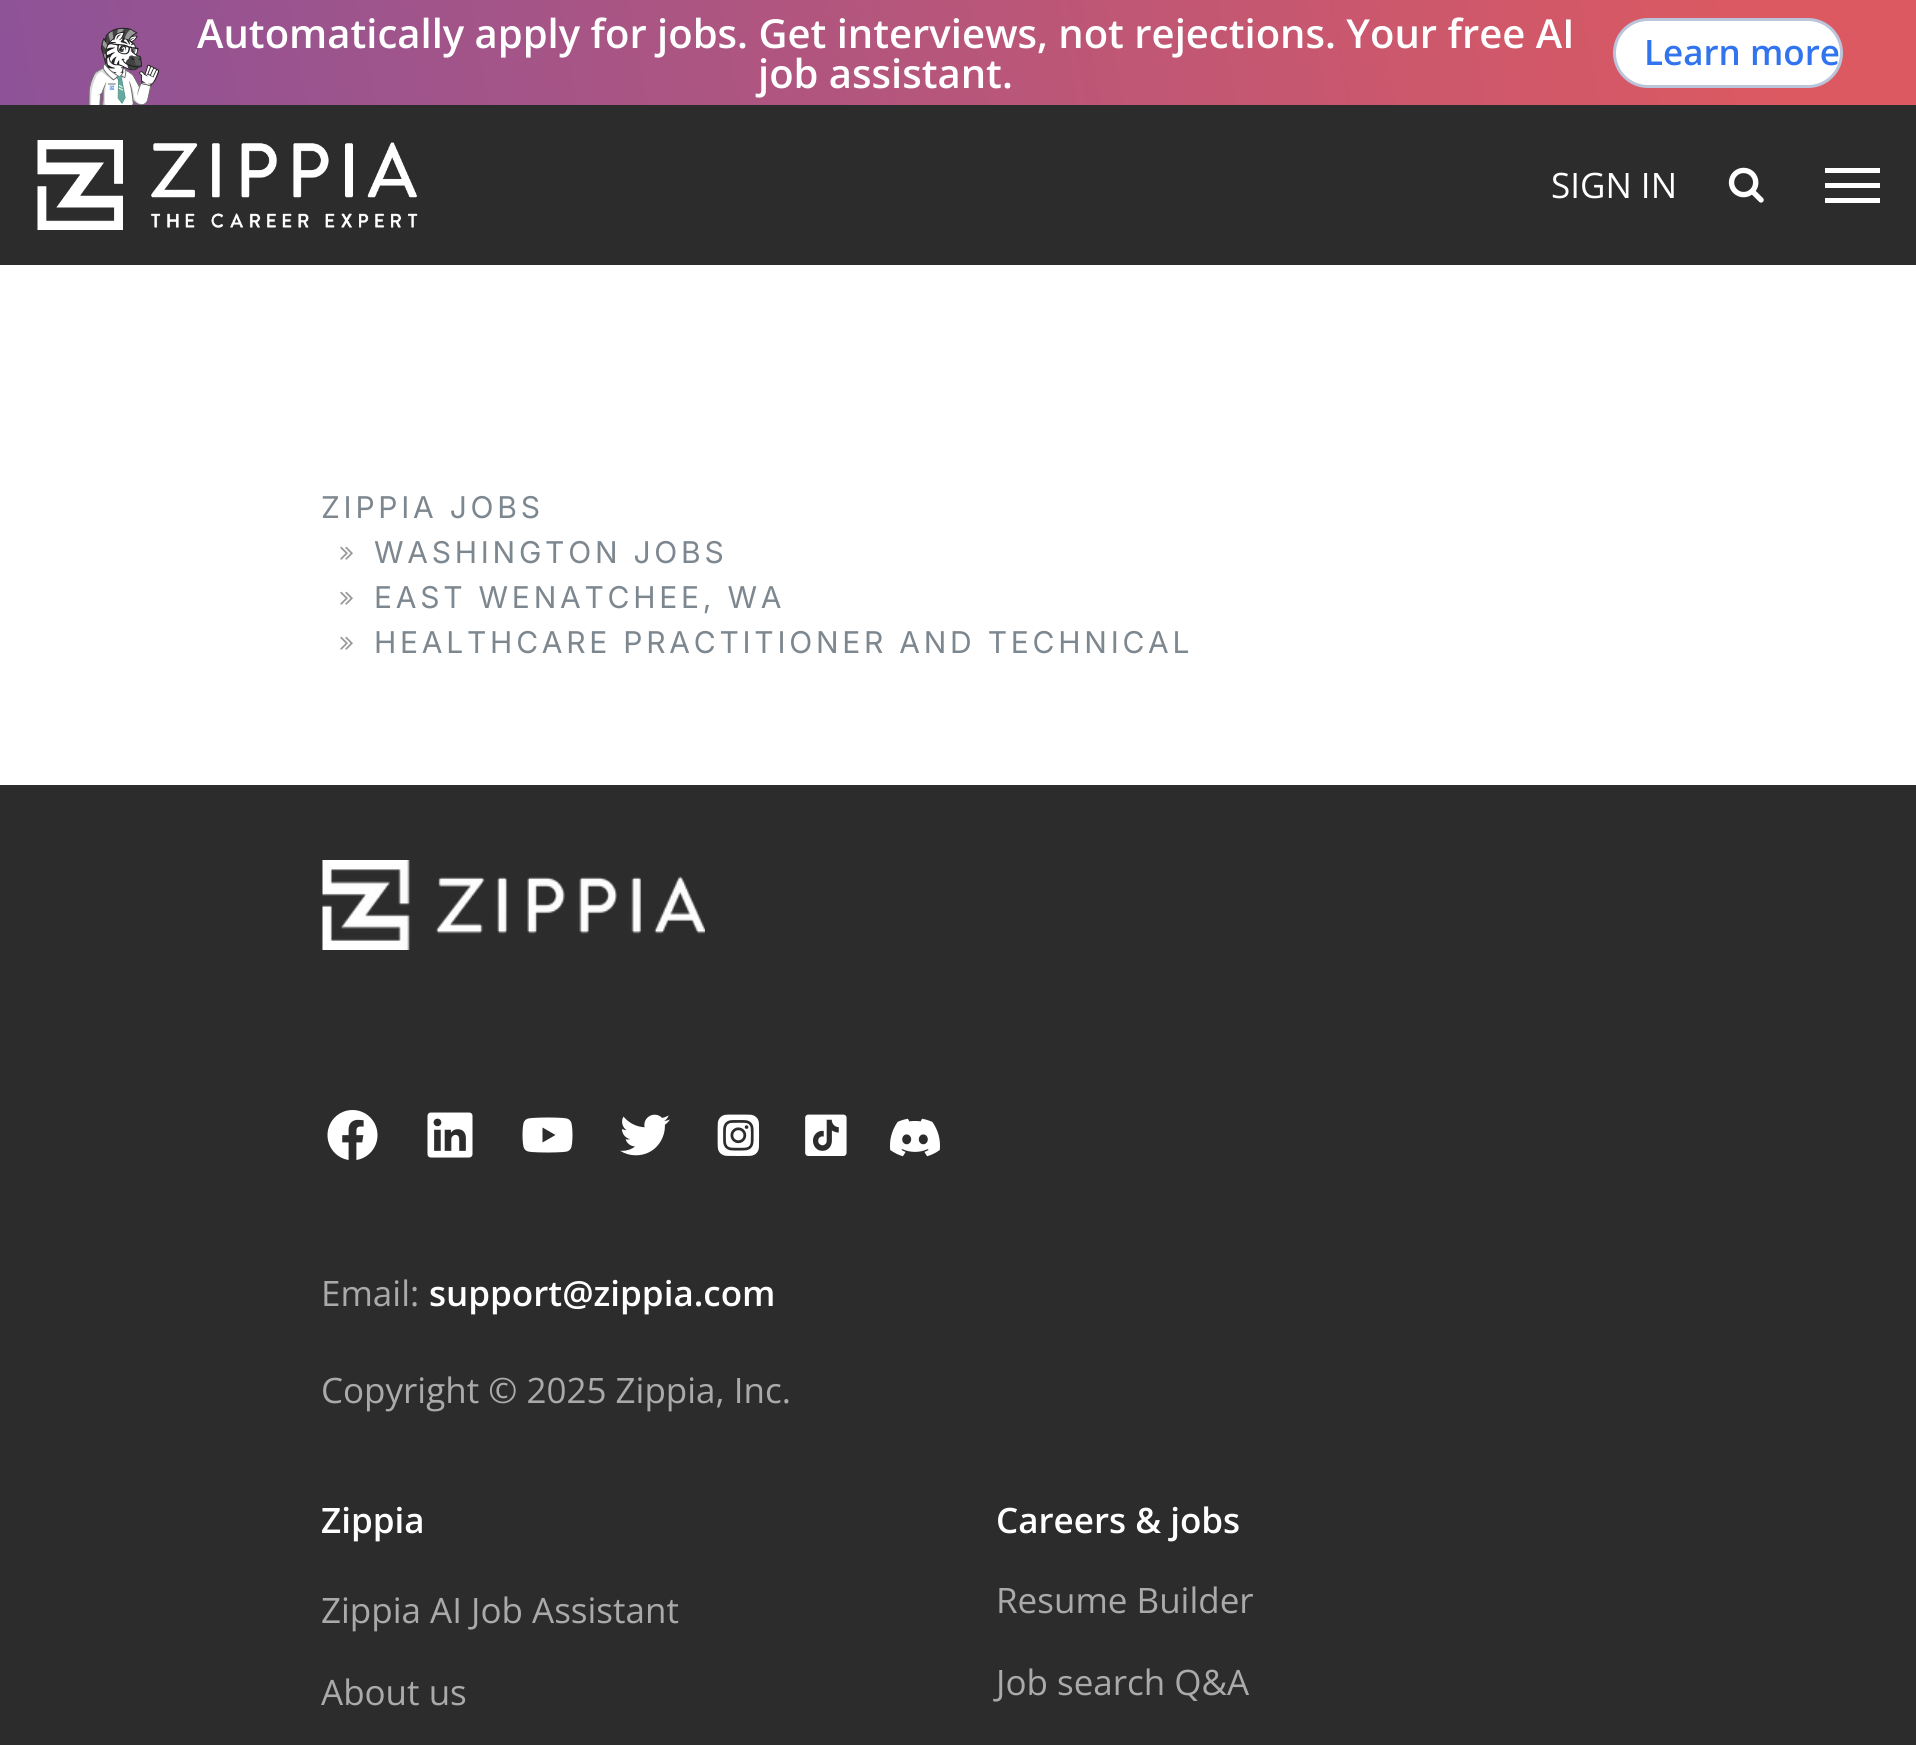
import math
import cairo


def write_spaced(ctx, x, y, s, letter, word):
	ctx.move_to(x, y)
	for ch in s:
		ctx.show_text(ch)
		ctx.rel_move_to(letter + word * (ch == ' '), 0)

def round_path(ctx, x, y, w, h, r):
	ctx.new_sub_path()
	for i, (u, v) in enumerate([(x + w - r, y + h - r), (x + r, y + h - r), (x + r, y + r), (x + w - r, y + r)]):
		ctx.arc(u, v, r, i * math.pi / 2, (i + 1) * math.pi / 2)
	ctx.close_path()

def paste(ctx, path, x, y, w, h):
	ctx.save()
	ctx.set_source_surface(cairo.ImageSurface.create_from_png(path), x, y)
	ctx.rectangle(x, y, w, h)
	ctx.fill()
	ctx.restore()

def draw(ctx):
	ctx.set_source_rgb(1, 1, 1)
	ctx.paint()
	gradient = cairo.LinearGradient(-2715, 726, 1896, -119)
	gradient.add_color_stop_rgba(0, 0.063, 0.282, 0.933, 1)
	gradient.add_color_stop_rgba(0.97, 0.863, 0.349, 0.38, 1)
	ctx.set_source(gradient)
	ctx.rectangle(0, 0, 1916, 105)
	ctx.fill()
	paste(ctx, 'media/1.png', 88, 27, 71, 78)
	ctx.select_font_face('Open Sans SemiBold')
	ctx.set_font_size(40)
	ctx.set_source_rgb(1, 1, 1)
	ctx.move_to(197, 48)
	ctx.show_text('Automatically apply for jobs. Get interviews, not rejections. Your free AI')
	ctx.move_to(758, 88)
	ctx.show_text('job assistant.')
	round_path(ctx, 1614.5, 19.5, 227, 67, 33.5)
	ctx.fill_preserve()
	ctx.set_source_rgb(0.729, 0.769, 0.855)
	ctx.set_line_width(3)
	ctx.stroke()
	ctx.set_font_size(35)
	ctx.set_source_rgb(0.192, 0.455, 0.933)
	ctx.move_to(1644, 65)
	ctx.show_text('Learn more')
	ctx.set_source_rgb(0.173, 0.173, 0.173)
	ctx.rectangle(0, 105, 1916, 160)
	ctx.fill()
	paste(ctx, 'media/2.png', 37, 140, 381, 90)
	ctx.select_font_face('Open Sans')
	ctx.set_source_rgb(1, 1, 1)
	ctx.move_to(1551, 198)
	ctx.show_text('SIGN IN')
	paste(ctx, 'media/3.png', 1728, 167, 36, 36)
	ctx.rectangle(1825, 168, 55, 5)
	ctx.rectangle(1825, 183, 55, 5)
	ctx.rectangle(1825, 198, 55, 5)
	ctx.fill()
	ctx.select_font_face('Inter')
	ctx.set_font_size(30)
	ctx.set_source_rgb(0.49, 0.529, 0.561)
	write_spaced(ctx, 321, 518, 'ZIPPIA JOBS', 3.75, 0)
	paste(ctx, 'media/4.png', 340, 546, 13, 14)
	write_spaced(ctx, 374, 563, 'WASHINGTON JOBS', 3.75, 0)
	paste(ctx, 'media/4.png', 340, 591, 13, 14)
	write_spaced(ctx, 374, 608, 'EAST WENATCHEE, WA', 3.75, 0)
	paste(ctx, 'media/4.png', 340, 636, 13, 14)
	write_spaced(ctx, 374, 653, 'HEALTHCARE PRACTITIONER AND TECHNICAL', 3.75, 0)
	ctx.set_source_rgb(0.173, 0.173, 0.173)
	ctx.rectangle(0, 785, 1916, 960)
	ctx.fill()
	paste(ctx, 'media/5.png', 322, 860, 383, 90)
	paste(ctx, 'media/6.png', 327, 1110, 51, 50)
	paste(ctx, 'media/7.png', 427, 1112, 46, 46)
	paste(ctx, 'media/8.png', 522, 1117, 51, 36)
	paste(ctx, 'media/9.png', 620, 1114, 50, 42)
	paste(ctx, 'media/10.png', 717, 1114, 43, 42)
	paste(ctx, 'media/11.png', 805, 1114, 42, 42)
	paste(ctx, 'media/12.png', 890, 1118, 50, 39)
	ctx.select_font_face('Open Sans')
	ctx.set_font_size(35)
	ctx.set_source_rgb(0.667, 0.667, 0.667)
	ctx.move_to(321, 1306)
	ctx.show_text('Email:')
	ctx.select_font_face('Open Sans SemiBold')
	ctx.set_source_rgb(1, 1, 1)
	ctx.move_to(429, 1306)
	ctx.show_text('support@zippia.com')
	ctx.select_font_face('Open Sans')
	ctx.set_source_rgb(0.667, 0.667, 0.667)
	ctx.move_to(321, 1403)
	ctx.show_text('Copyright © 2025 Zippia, Inc.')
	ctx.select_font_face('Open Sans SemiBold')
	ctx.set_source_rgb(1, 1, 1)
	ctx.move_to(321, 1533)
	ctx.show_text('Zippia')
	ctx.select_font_face('Open Sans')
	ctx.set_source_rgb(0.667, 0.667, 0.667)
	ctx.move_to(321, 1623)
	ctx.show_text('Zippia AI Job Assistant')
	ctx.move_to(321, 1705)
	ctx.show_text('About us')
	ctx.select_font_face('Open Sans SemiBold')
	ctx.set_source_rgb(1, 1, 1)
	ctx.move_to(996, 1533)
	ctx.show_text('Careers & jobs')
	ctx.select_font_face('Open Sans')
	ctx.set_source_rgb(0.667, 0.667, 0.667)
	ctx.move_to(996, 1613)
	ctx.show_text('Resume Builder')
	ctx.move_to(996, 1695)
	ctx.show_text('Job search Q&A')


surface = cairo.ImageSurface(cairo.FORMAT_RGB24, 1916, 1745)
ctx = cairo.Context(surface)
options = cairo.FontOptions()
options.set_hint_metrics(cairo.HINT_METRICS_OFF)
options.set_hint_style(cairo.HINT_STYLE_NONE)
ctx.set_font_options(options)
ctx.set_miter_limit(4)
draw(ctx)
surface.write_to_png('image.png')
